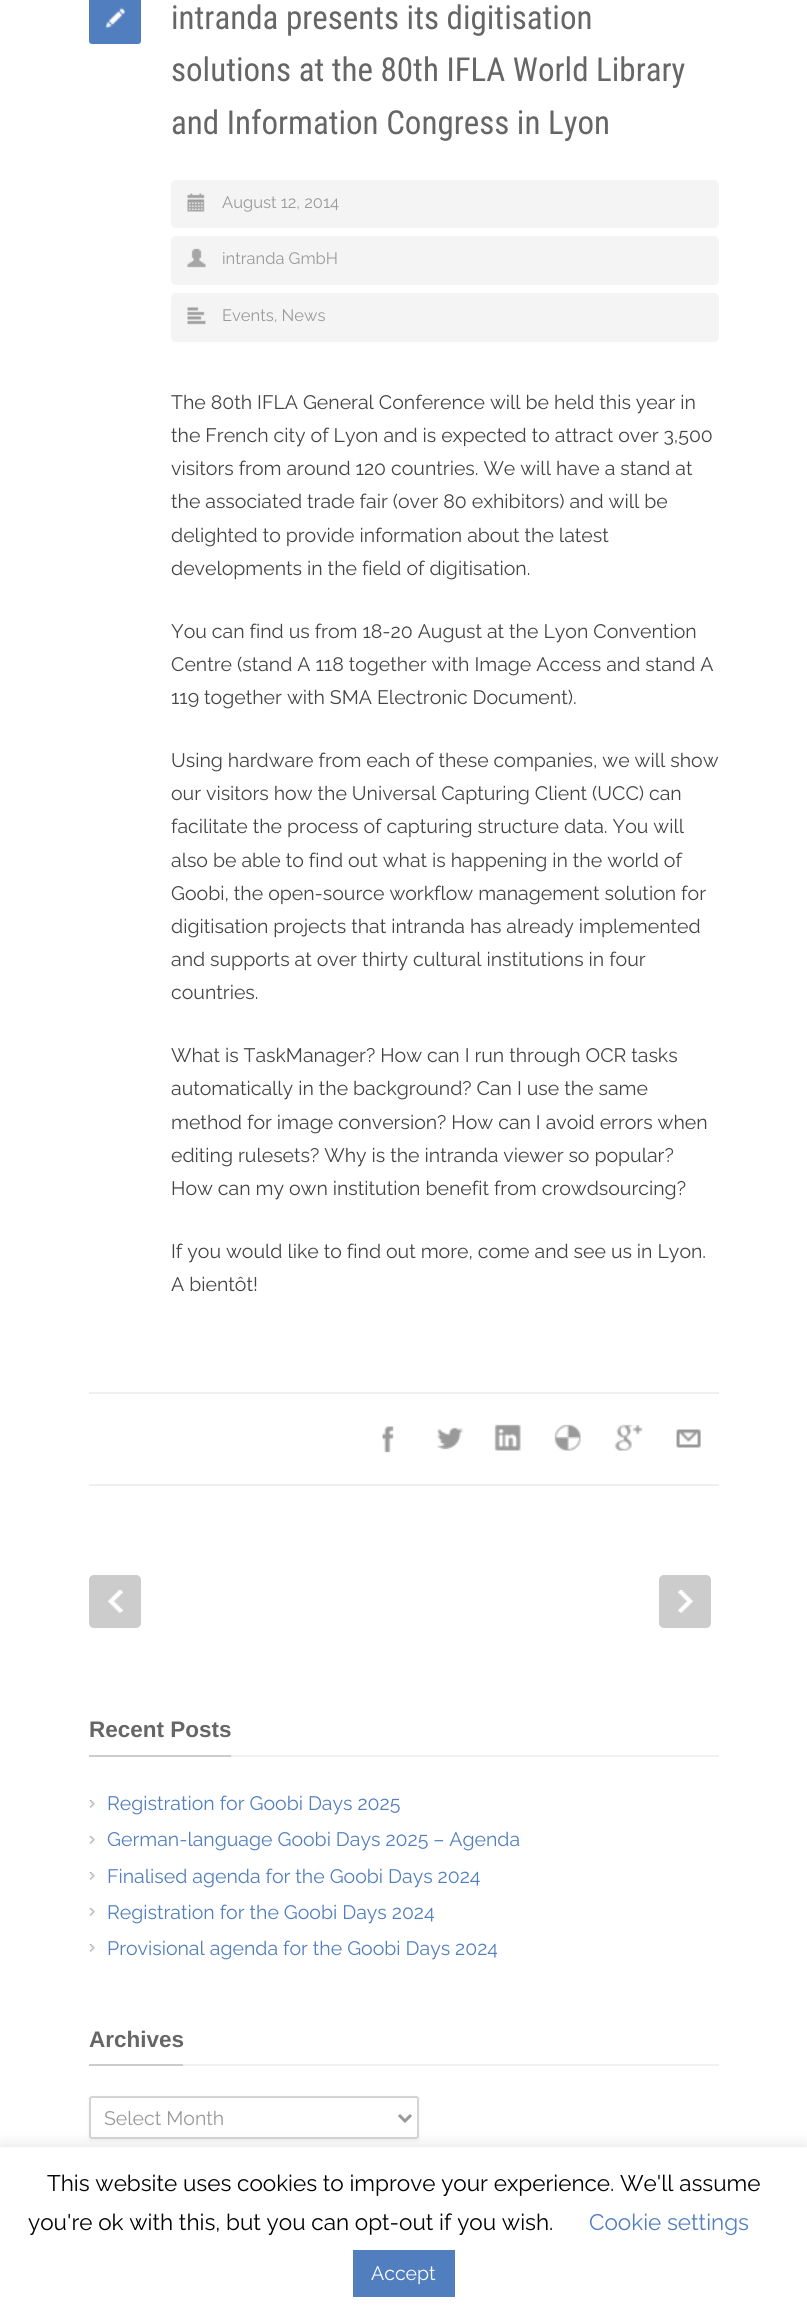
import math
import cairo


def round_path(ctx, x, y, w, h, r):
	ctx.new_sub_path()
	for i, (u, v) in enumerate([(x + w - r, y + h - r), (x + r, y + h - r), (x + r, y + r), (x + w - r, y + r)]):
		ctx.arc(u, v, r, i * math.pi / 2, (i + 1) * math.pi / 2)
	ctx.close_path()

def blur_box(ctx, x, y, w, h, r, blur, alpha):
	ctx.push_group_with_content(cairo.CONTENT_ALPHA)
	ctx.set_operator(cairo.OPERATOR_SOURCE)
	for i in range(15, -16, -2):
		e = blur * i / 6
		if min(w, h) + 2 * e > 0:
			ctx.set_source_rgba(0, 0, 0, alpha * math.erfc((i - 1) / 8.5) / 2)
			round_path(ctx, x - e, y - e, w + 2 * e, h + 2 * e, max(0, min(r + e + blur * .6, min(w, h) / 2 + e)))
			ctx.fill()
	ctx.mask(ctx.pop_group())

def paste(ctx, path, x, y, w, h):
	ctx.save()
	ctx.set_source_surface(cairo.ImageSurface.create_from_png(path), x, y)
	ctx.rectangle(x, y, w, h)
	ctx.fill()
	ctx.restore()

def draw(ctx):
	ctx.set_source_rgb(1, 1, 1)
	ctx.paint()
	ctx.set_source_rgb(0.314, 0.494, 0.749)
	round_path(ctx, 89, -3, 52, 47, 3)
	ctx.fill()
	paste(ctx, 'media/1.png', 105, 7, 20, 22)
	ctx.select_font_face('Roboto Condensed')
	ctx.set_font_size(33)
	ctx.set_source_rgb(0.4, 0.4, 0.4)
	for x, y, s in [
		(171, 29, 'intranda presents its digitisation'),
		(171, 81, 'solutions at the 80th IFLA World Library'),
		(171, 134, 'and Information Congress in Lyon'),
	]:
		ctx.move_to(x, y)
		ctx.show_text(s)
	ctx.set_source_rgb(0.957, 0.957, 0.957)
	round_path(ctx, 171, 180, 548, 48, 5)
	ctx.fill()
	paste(ctx, 'media/2.png', 187, 193, 18, 19)
	ctx.select_font_face('Raleway')
	ctx.set_font_size(16.5)
	ctx.set_source_rgb(0.6, 0.6, 0.6)
	ctx.move_to(222, 208)
	ctx.show_text('August 12, 2014')
	ctx.set_source_rgb(0.957, 0.957, 0.957)
	round_path(ctx, 171, 236, 548, 49, 5)
	ctx.fill()
	paste(ctx, 'media/3.png', 187, 248, 19, 20)
	ctx.set_source_rgb(0.6, 0.6, 0.6)
	ctx.move_to(222, 264)
	ctx.show_text('intranda GmbH')
	ctx.set_source_rgb(0.957, 0.957, 0.957)
	round_path(ctx, 171, 293, 548, 49, 5)
	ctx.fill()
	paste(ctx, 'media/4.png', 187, 307, 19, 18)
	ctx.set_source_rgb(0.6, 0.6, 0.6)
	ctx.move_to(222, 321)
	ctx.show_text('Events, News')
	ctx.set_font_size(19.5)
	ctx.set_source_rgb(0.267, 0.267, 0.267)
	for x, y, s in [
		(171, 409, 'The 80th IFLA General Conference will be held this year in'),
		(171, 442, 'the French city of Lyon and is expected to attract over 3,500'),
		(171, 475, 'visitors from around 120 countries. We will have a stand at'),
		(171, 508, 'the associated trade fair (over 80 exhibitors) and will be'),
		(171, 542, 'delighted to provide information about the latest'),
		(171, 575, 'developments in the field of digitisation.'),
		(171, 638, 'You can find us from 18-20 August at the Lyon Convention'),
		(171, 671, 'Centre (stand A 118 together with Image Access and stand A'),
		(171, 704, '119 together with SMA Electronic Document).'),
		(171, 767, 'Using hardware from each of these companies, we will show'),
		(171, 800, 'our visitors how the Universal Capturing Client (UCC) can'),
		(171, 833, 'facilitate the process of capturing structure data. You will'),
		(171, 867, 'also be able to find out what is happening in the world of'),
		(171, 900, 'Goobi, the open-source workflow management solution for'),
		(171, 933, 'digitisation projects that intranda has already implemented'),
		(171, 966, 'and supports at over thirty cultural institutions in four'),
		(171, 999, 'countries.'),
		(171, 1062, 'What is TaskManager? How can I run through OCR tasks'),
		(171, 1095, 'automatically in the background? Can I use the same'),
		(171, 1129, 'method for image conversion? How can I avoid errors when'),
		(171, 1162, 'editing rulesets? Why is the intranda viewer so popular?'),
		(171, 1195, 'How can my own institution benefit from crowdsourcing?'),
		(171, 1258, 'If you would like to find out more, come and see us in Lyon.'),
		(171, 1291, 'A bientôt!'),
	]:
		ctx.move_to(x, y)
		ctx.show_text(s)
	ctx.set_source_rgb(0.937, 0.937, 0.937)
	ctx.rectangle(89, 1392, 630, 2)
	ctx.fill()
	ctx.rectangle(89, 1484, 630, 2)
	ctx.fill()
	paste(ctx, 'media/5.png', 382, 1426, 12, 27)
	paste(ctx, 'media/6.png', 436, 1427, 28, 23)
	paste(ctx, 'media/7.png', 494, 1424, 27, 27)
	paste(ctx, 'media/8.png', 554, 1424, 27, 27)
	paste(ctx, 'media/9.png', 614, 1424, 29, 27)
	paste(ctx, 'media/10.png', 676, 1429, 25, 19)
	ctx.set_source_rgb(0.8, 0.8, 0.8)
	round_path(ctx, 89, 1575, 52, 53, 5)
	ctx.fill()
	paste(ctx, 'media/11.png', 108, 1590, 15, 23)
	round_path(ctx, 659, 1575, 52, 53, 5)
	ctx.fill()
	paste(ctx, 'media/12.png', 678, 1590, 15, 23)
	ctx.set_source_rgb(0.945, 0.945, 0.945)
	ctx.rectangle(231, 1755, 488, 2)
	ctx.fill()
	ctx.set_source_rgb(0.8, 0.8, 0.8)
	ctx.rectangle(89, 1755, 142, 2)
	ctx.fill()
	ctx.select_font_face('Liberation Sans', cairo.FONT_SLANT_NORMAL, cairo.FONT_WEIGHT_BOLD)
	ctx.set_font_size(22.5)
	ctx.set_source_rgb(0.4, 0.4, 0.4)
	ctx.move_to(89, 1737)
	ctx.show_text('Recent Posts')
	paste(ctx, 'media/13.png', 89, 1800, 6, 8)
	ctx.select_font_face('Raleway')
	ctx.set_font_size(19.5)
	ctx.set_source_rgb(0.314, 0.494, 0.749)
	ctx.move_to(107, 1810)
	ctx.show_text('Registration for Goobi Days 2025')
	paste(ctx, 'media/13.png', 89, 1836, 6, 8)
	ctx.move_to(107, 1846)
	ctx.show_text('German-language Goobi Days 2025 – Agenda')
	paste(ctx, 'media/13.png', 89, 1872, 6, 8)
	ctx.move_to(107, 1883)
	ctx.show_text('Finalised agenda for the Goobi Days 2024')
	paste(ctx, 'media/13.png', 89, 1908, 6, 8)
	ctx.move_to(107, 1919)
	ctx.show_text('Registration for the Goobi Days 2024')
	paste(ctx, 'media/13.png', 89, 1944, 6, 8)
	ctx.move_to(107, 1955)
	ctx.show_text('Provisional agenda for the Goobi Days 2024')
	ctx.set_source_rgb(0.945, 0.945, 0.945)
	ctx.rectangle(183, 2064, 536, 2)
	ctx.fill()
	ctx.set_source_rgb(0.8, 0.8, 0.8)
	ctx.rectangle(89, 2064, 94, 2)
	ctx.fill()
	ctx.select_font_face('Liberation Sans', cairo.FONT_SLANT_NORMAL, cairo.FONT_WEIGHT_BOLD)
	ctx.set_font_size(22.5)
	ctx.set_source_rgb(0.4, 0.4, 0.4)
	ctx.move_to(89, 2047)
	ctx.show_text('Archives')
	ctx.set_source_rgb(0.706, 0.706, 0.706)
	blur_box(ctx, 89, 2097, 330, 44, 3, 1.5, 0.2)
	ctx.set_source_rgb(1, 1, 1)
	round_path(ctx, 90, 2097, 328, 41, 2)
	ctx.fill_preserve()
	ctx.set_source_rgb(0.831, 0.831, 0.831)
	ctx.stroke()
	ctx.new_path()
	ctx.move_to(399, 2115)
	ctx.line_to(405, 2121)
	ctx.line_to(411, 2115)
	ctx.set_source_rgb(0.6, 0.6, 0.6)
	ctx.set_line_width(3)
	ctx.stroke()
	ctx.select_font_face('Raleway')
	ctx.set_font_size(19.5)
	ctx.move_to(104, 2125)
	ctx.show_text('Select Month')
	ctx.set_source_rgb(0.675, 0.671, 0.671)
	blur_box(ctx, 0, 2145, 807, 176, 0, 7.5, 0.3)
	ctx.set_source_rgb(1, 1, 1)
	ctx.rectangle(0, 2147, 807, 174)
	ctx.fill()
	ctx.set_font_size(22.5)
	ctx.set_source_rgb(0, 0, 0)
	ctx.move_to(47, 2191)
	ctx.show_text('This website uses cookies to improve your experience. We\'ll assume')
	ctx.move_to(28, 2230)
	ctx.show_text('you\'re ok with this, but you can opt-out if you wish.')
	ctx.set_source_rgb(0.314, 0.494, 0.749)
	ctx.move_to(589, 2230)
	ctx.show_text('Cookie settings')
	ctx.rectangle(353, 2250, 102, 47)
	ctx.fill()
	ctx.set_font_size(19.5)
	ctx.set_source_rgb(1, 1, 1)
	ctx.move_to(371, 2280)
	ctx.show_text('Accept')


surface = cairo.ImageSurface(cairo.FORMAT_RGB24, 807, 2321)
ctx = cairo.Context(surface)
options = cairo.FontOptions()
options.set_hint_metrics(cairo.HINT_METRICS_OFF)
options.set_hint_style(cairo.HINT_STYLE_NONE)
ctx.set_font_options(options)
ctx.set_miter_limit(4)
draw(ctx)
surface.write_to_png('image.png')
